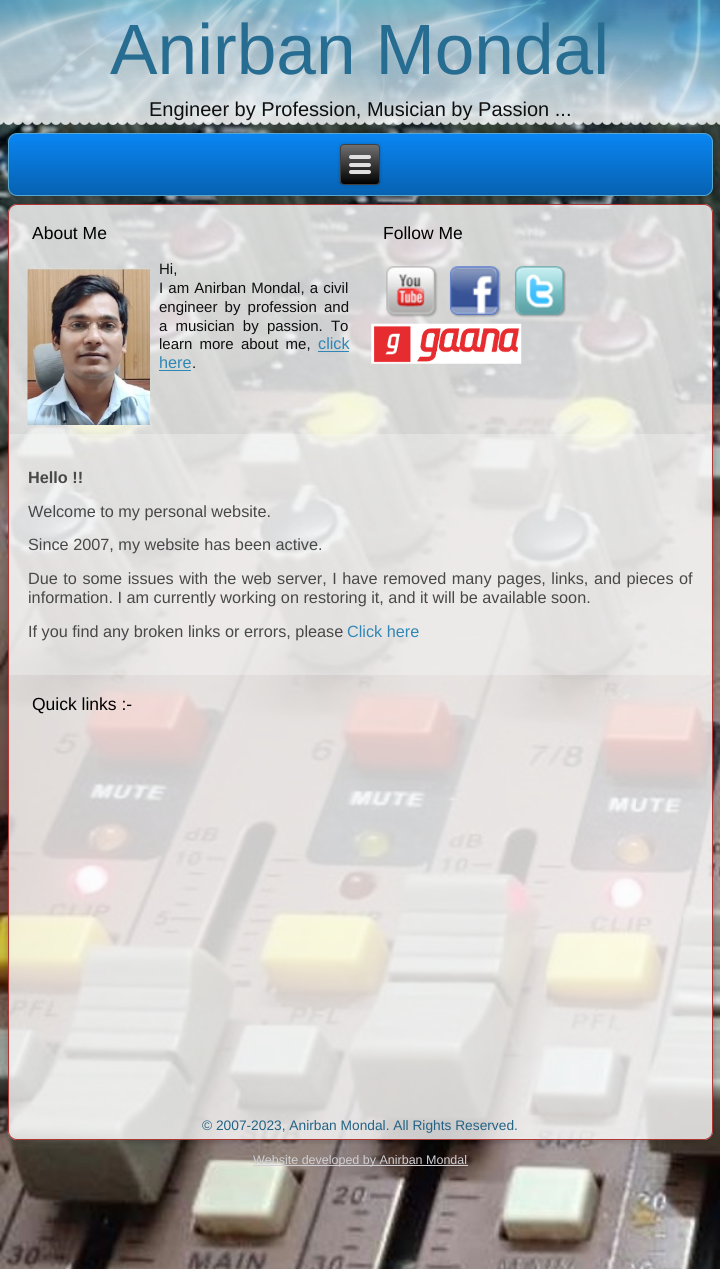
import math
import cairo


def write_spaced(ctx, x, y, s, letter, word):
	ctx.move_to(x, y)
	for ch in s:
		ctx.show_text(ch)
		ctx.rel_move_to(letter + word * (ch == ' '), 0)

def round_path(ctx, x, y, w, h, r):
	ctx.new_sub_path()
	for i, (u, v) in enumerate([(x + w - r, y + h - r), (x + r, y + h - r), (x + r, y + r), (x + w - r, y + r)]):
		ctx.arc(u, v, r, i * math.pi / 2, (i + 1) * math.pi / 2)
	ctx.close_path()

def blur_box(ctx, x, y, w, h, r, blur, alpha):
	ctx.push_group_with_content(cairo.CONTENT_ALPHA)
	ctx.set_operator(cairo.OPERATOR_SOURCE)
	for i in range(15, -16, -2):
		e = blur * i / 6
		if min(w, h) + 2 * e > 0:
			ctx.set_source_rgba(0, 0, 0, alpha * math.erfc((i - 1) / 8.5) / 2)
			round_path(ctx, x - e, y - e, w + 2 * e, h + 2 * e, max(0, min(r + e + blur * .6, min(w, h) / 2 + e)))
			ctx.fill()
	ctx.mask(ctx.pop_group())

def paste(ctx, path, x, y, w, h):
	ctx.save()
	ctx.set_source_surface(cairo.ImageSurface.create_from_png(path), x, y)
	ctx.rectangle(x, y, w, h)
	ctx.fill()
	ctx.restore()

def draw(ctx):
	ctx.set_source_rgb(1, 1, 1)
	ctx.paint()
	paste(ctx, 'media/1.png', 0, 0, 720, 1269)
	paste(ctx, 'media/2.png', 0, 0, 720, 125)
	ctx.select_font_face('Liberation Sans')
	ctx.set_font_size(71.25)
	ctx.set_source_rgb(0.153, 0.424, 0.569)
	ctx.move_to(110, 74)
	ctx.show_text('Anirban Mondal')
	ctx.set_font_size(20)
	ctx.set_source_rgb(0.059, 0.059, 0.059)
	ctx.move_to(149, 116)
	ctx.show_text('Engineer by Profession, Musician by Passion ...')
	ctx.save()
	ctx.set_fill_rule(cairo.FILL_RULE_EVEN_ODD)
	ctx.new_path()
	ctx.move_to(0, 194)
	ctx.line_to(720, 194)
	ctx.line_to(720, 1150)
	ctx.line_to(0, 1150)
	ctx.close_path()
	ctx.move_to(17, 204)
	ctx.line_to(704, 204)
	ctx.curve_to(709, 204, 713, 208, 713, 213)
	ctx.line_to(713, 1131)
	ctx.curve_to(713, 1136, 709, 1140, 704, 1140)
	ctx.line_to(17, 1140)
	ctx.curve_to(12, 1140, 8, 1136, 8, 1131)
	ctx.line_to(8, 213)
	ctx.curve_to(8, 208, 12, 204, 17, 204)
	ctx.close_path()
	ctx.clip()
	ctx.set_source_rgb(0, 0, 0)
	blur_box(ctx, 5, 201, 710, 942, 11, 2, 0.12)
	ctx.restore()
	ctx.set_source_rgba(0.988, 0.988, 0.988, 0.8)
	round_path(ctx, 8, 204, 705, 936, 9)
	ctx.fill()
	round_path(ctx, 8.5, 204.5, 704, 935, 8.5)
	ctx.set_source_rgba(0.647, 0.051, 0.051, 0.8)
	ctx.set_line_width(1)
	ctx.stroke()
	ctx.set_source_rgb(0, 0, 0)
	blur_box(ctx, 5, 130, 710, 69, 11, 2, 0.15)
	gradient = cairo.LinearGradient(360, 132, 360, 196)
	gradient.add_color_stop_rgba(0, 0.039, 0.529, 0.961, 1)
	gradient.add_color_stop_rgba(1, 0.027, 0.38, 0.69, 1)
	ctx.set_source(gradient)
	round_path(ctx, 8.5, 133.5, 704, 62, 8.5)
	ctx.fill_preserve()
	ctx.set_source_rgb(0.337, 0.655, 0.824)
	ctx.stroke()
	ctx.set_source_rgb(0, 0, 0)
	blur_box(ctx, 340, 144, 40, 41, 4, 2, 0.2)
	ctx.save()
	round_path(ctx, 340, 144, 40, 41, 4)
	ctx.clip()
	gradient = cairo.LinearGradient(360, 145, 360, 184)
	gradient.add_color_stop_rgba(0, 0.439, 0.439, 0.439, 1)
	gradient.add_color_stop_rgba(1, 0, 0, 0, 1)
	ctx.set_source(gradient)
	ctx.rectangle(340, 145, 40, 39)
	ctx.fill()
	ctx.restore()
	round_path(ctx, 340.5, 144.5, 39, 40, 3.5)
	ctx.set_source_rgb(0.251, 0.251, 0.251)
	ctx.stroke()
	ctx.set_source_rgb(0.878, 0.878, 0.878)
	round_path(ctx, 349, 155, 22, 4, 2)
	ctx.fill()
	round_path(ctx, 349, 163, 22, 4, 2)
	ctx.fill()
	round_path(ctx, 349, 170, 22, 4, 2)
	ctx.fill()
	ctx.set_font_size(17.5)
	ctx.set_source_rgb(0, 0, 0)
	ctx.move_to(32, 239)
	ctx.show_text('About Me')
	paste(ctx, 'media/3.png', 27, 268, 123, 157)
	ctx.set_font_size(15)
	ctx.set_source_rgb(0.059, 0.059, 0.059)
	ctx.move_to(159, 274)
	ctx.show_text('Hi,')
	write_spaced(ctx, 159, 293, 'I am Anirban Mondal, a civil', 0, 1)
	write_spaced(ctx, 159, 312, 'engineer by profession and', 0, 3)
	write_spaced(ctx, 159, 331, 'a musician by passion. To', 0, 4)
	write_spaced(ctx, 159, 349, 'learn more about me,', 0, 3)
	ctx.set_font_size(16.25)
	ctx.set_source_rgb(0.188, 0.529, 0.71)
	ctx.move_to(318, 349)
	ctx.show_text('click')
	ctx.rectangle(318, 351, 31, 1)
	ctx.fill()
	ctx.move_to(159, 368)
	ctx.show_text('here')
	ctx.set_font_size(15)
	ctx.set_source_rgb(0.059, 0.059, 0.059)
	ctx.move_to(192, 368)
	ctx.show_text('.')
	ctx.set_source_rgb(0.188, 0.529, 0.71)
	ctx.rectangle(159, 370, 32, 1)
	ctx.fill()
	ctx.set_font_size(17.5)
	ctx.set_source_rgb(0, 0, 0)
	ctx.move_to(383, 239)
	ctx.show_text('Follow Me')
	paste(ctx, 'media/4.png', 386, 266, 52, 52)
	paste(ctx, 'media/5.png', 449, 266, 52, 52)
	paste(ctx, 'media/6.png', 514, 266, 52, 52)
	paste(ctx, 'media/7.png', 371, 323, 151, 41)
	ctx.set_source_rgba(0.988, 0.988, 0.988, 0.3)
	ctx.rectangle(9, 434, 702, 241)
	ctx.fill()
	ctx.select_font_face('Liberation Sans', cairo.FONT_SLANT_NORMAL, cairo.FONT_WEIGHT_BOLD)
	ctx.set_font_size(16.25)
	ctx.set_source_rgb(0.278, 0.282, 0.278)
	ctx.move_to(28, 483)
	ctx.show_text('Hello !!')
	ctx.select_font_face('Liberation Sans')
	ctx.move_to(28, 517)
	ctx.show_text('Welcome to my personal website.')
	ctx.move_to(28, 550)
	ctx.show_text('Since 2007, my website has been active.')
	write_spaced(ctx, 28, 584, 'Due to some issues with the web server, I have removed many pages, links, and pieces of', 0, 1)
	ctx.move_to(28, 603)
	ctx.show_text('information. I am currently working on restoring it, and it will be available soon.')
	ctx.move_to(28, 637)
	ctx.show_text('If you find any broken links or errors, please')
	ctx.set_source_rgb(0.188, 0.529, 0.71)
	ctx.move_to(347, 637)
	ctx.show_text('Click here')
	ctx.set_font_size(17.5)
	ctx.set_source_rgb(0, 0, 0)
	ctx.move_to(32, 710)
	ctx.show_text('Quick links :-')
	ctx.set_font_size(13.75)
	ctx.set_source_rgb(0.137, 0.388, 0.522)
	ctx.move_to(202, 1130)
	ctx.show_text('© 2007-2023, Anirban Mondal. All Rights Reserved.')
	ctx.set_source_rgb(0.816, 0.812, 0.827)
	ctx.rectangle(253, 1165, 215, 1)
	ctx.fill()
	ctx.set_font_size(12.5)
	ctx.move_to(253, 1164)
	ctx.show_text('Website developed by Anirban Mondal')


surface = cairo.ImageSurface(cairo.FORMAT_RGB24, 720, 1269)
ctx = cairo.Context(surface)
options = cairo.FontOptions()
options.set_hint_metrics(cairo.HINT_METRICS_OFF)
options.set_hint_style(cairo.HINT_STYLE_NONE)
ctx.set_font_options(options)
ctx.set_miter_limit(4)
draw(ctx)
surface.write_to_png('image.png')
